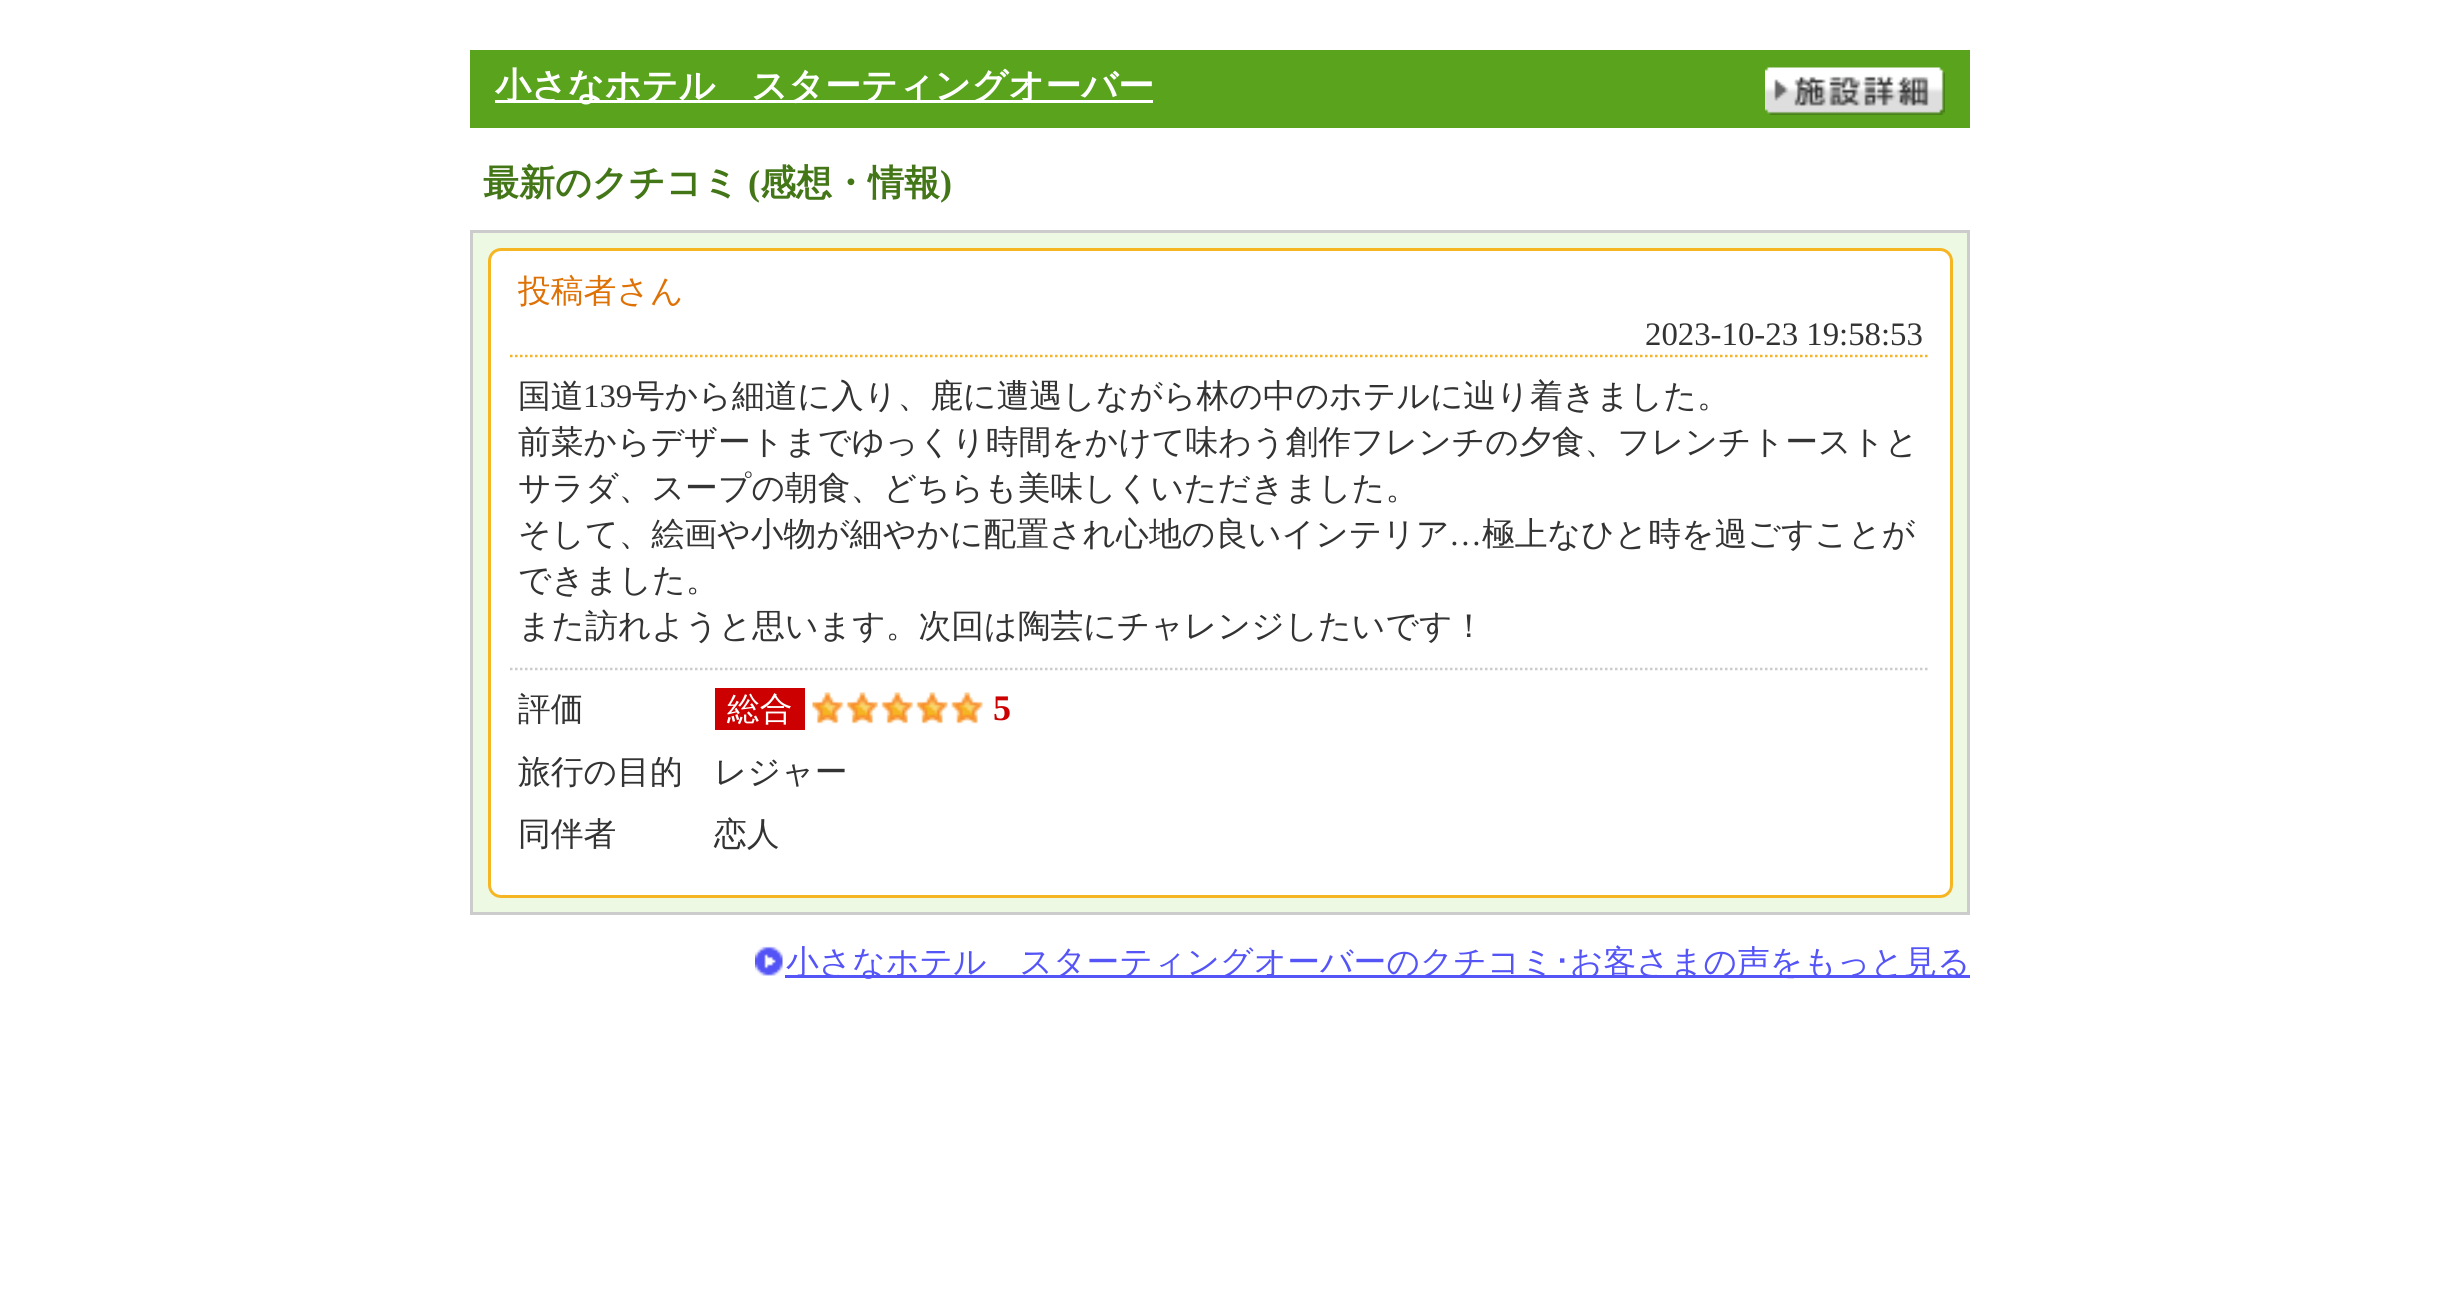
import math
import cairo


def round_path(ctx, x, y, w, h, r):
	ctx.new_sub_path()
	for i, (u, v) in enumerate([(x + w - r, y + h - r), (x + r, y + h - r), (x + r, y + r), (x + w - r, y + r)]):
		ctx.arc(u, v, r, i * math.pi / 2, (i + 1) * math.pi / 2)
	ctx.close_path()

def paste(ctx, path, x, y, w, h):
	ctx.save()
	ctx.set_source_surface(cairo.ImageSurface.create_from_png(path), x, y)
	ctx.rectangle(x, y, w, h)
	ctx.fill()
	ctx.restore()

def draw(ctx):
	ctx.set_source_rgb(1, 1, 1)
	ctx.paint()
	ctx.set_source_rgb(0.349, 0.639, 0.114)
	ctx.rectangle(470, 50, 1500, 78)
	ctx.fill()
	ctx.set_source_rgb(1, 1, 1)
	ctx.rectangle(495, 100, 658, 3)
	ctx.fill()
	ctx.select_font_face('WenQuanYi Zen Hei', cairo.FONT_SLANT_NORMAL, cairo.FONT_WEIGHT_BOLD)
	ctx.set_font_size(36)
	ctx.move_to(495, 98)
	ctx.show_text('小さなホテル　スターティングオーバー')
	paste(ctx, 'media/1.png', 1765, 67, 180, 48)
	ctx.set_source_rgb(0.263, 0.463, 0.09)
	ctx.move_to(483, 195)
	ctx.show_text('最新のクチコミ')
	ctx.select_font_face('Liberation Serif', cairo.FONT_SLANT_NORMAL, cairo.FONT_WEIGHT_BOLD)
	ctx.move_to(748, 195)
	ctx.show_text('(')
	ctx.select_font_face('WenQuanYi Zen Hei', cairo.FONT_SLANT_NORMAL, cairo.FONT_WEIGHT_BOLD)
	ctx.move_to(760, 195)
	ctx.show_text('感想・情報')
	ctx.select_font_face('Liberation Serif', cairo.FONT_SLANT_NORMAL, cairo.FONT_WEIGHT_BOLD)
	ctx.move_to(940, 195)
	ctx.show_text(')')
	ctx.set_source_rgb(0.929, 0.976, 0.89)
	ctx.rectangle(471.5, 231.5, 1497, 682)
	ctx.fill_preserve()
	ctx.set_source_rgb(0.8, 0.8, 0.8)
	ctx.set_line_width(3)
	ctx.stroke()
	ctx.set_source_rgb(1, 1, 1)
	round_path(ctx, 489.5, 249.5, 1462, 647, 11.5)
	ctx.fill_preserve()
	ctx.set_source_rgb(0.961, 0.714, 0.141)
	ctx.stroke()
	ctx.select_font_face('WenQuanYi Zen Hei Medium')
	ctx.set_font_size(32.8)
	ctx.set_source_rgb(0.871, 0.447, 0.024)
	ctx.move_to(518, 302)
	ctx.show_text('投稿者さん')
	ctx.select_font_face('Liberation Serif')
	ctx.set_source_rgb(0.2, 0.2, 0.2)
	ctx.move_to(1645, 345)
	ctx.show_text('2023-10-23 19:58:53')
	ctx.new_path()
	ctx.move_to(510, 356)
	ctx.line_to(1930, 356)
	ctx.set_source_rgb(0.961, 0.714, 0.141)
	ctx.set_line_width(2.5)
	ctx.set_dash([2.5, 2.5])
	ctx.stroke()
	ctx.select_font_face('WenQuanYi Zen Hei Medium')
	ctx.set_source_rgb(0.2, 0.2, 0.2)
	ctx.move_to(518, 407)
	ctx.show_text('国道')
	ctx.select_font_face('Liberation Serif')
	ctx.move_to(583, 407)
	ctx.show_text('139')
	ctx.select_font_face('WenQuanYi Zen Hei Medium')
	for x, y, s in [
		(632, 407, '号から細道に入り、鹿に遭遇しながら林の中のホテルに辿り着きました。'),
		(518, 453, '前菜からデザートまでゆっくり時間をかけて味わう創作フレンチの夕食、フレンチトーストと'),
		(518, 499, 'サラダ、スープの朝食、どちらも美味しくいただきました。'),
		(518, 545, 'そして、絵画や小物が細やかに配置され心地の良いインテリア'),
	]:
		ctx.move_to(x, y)
		ctx.show_text(s)
	ctx.select_font_face('Liberation Serif')
	ctx.move_to(1449, 545)
	ctx.show_text('…')
	ctx.select_font_face('WenQuanYi Zen Hei Medium')
	for x, y, s in [
		(1482, 545, '極上なひと時を過ごすことが'),
		(518, 591, 'できました。'),
		(518, 637, 'また訪れようと思います。次回は陶芸にチャレンジしたいです！'),
	]:
		ctx.move_to(x, y)
		ctx.show_text(s)
	ctx.new_path()
	ctx.move_to(510, 669)
	ctx.line_to(1930, 669)
	ctx.set_source_rgb(0.8, 0.8, 0.8)
	ctx.stroke()
	ctx.set_source_rgb(0.2, 0.2, 0.2)
	ctx.move_to(518, 720)
	ctx.show_text('評価')
	ctx.set_source_rgb(0.8, 0, 0)
	ctx.rectangle(715, 688, 90, 42)
	ctx.fill()
	ctx.set_source_rgb(1, 1, 1)
	ctx.move_to(727, 720)
	ctx.show_text('総合')
	paste(ctx, 'media/2.png', 812, 692, 171, 32)
	ctx.select_font_face('Liberation Serif', cairo.FONT_SLANT_NORMAL, cairo.FONT_WEIGHT_BOLD)
	ctx.set_font_size(36)
	ctx.set_source_rgb(0.8, 0, 0)
	ctx.move_to(993, 720)
	ctx.show_text('5')
	ctx.select_font_face('WenQuanYi Zen Hei Medium')
	ctx.set_font_size(32.8)
	ctx.set_source_rgb(0.2, 0.2, 0.2)
	for x, y, s in [
		(518, 783, '旅行の目的'),
		(714, 783, 'レジャー'),
		(518, 845, '同伴者'),
		(714, 845, '恋人'),
	]:
		ctx.move_to(x, y)
		ctx.show_text(s)
	paste(ctx, 'media/3.png', 755, 946, 28, 30)
	ctx.set_source_rgb(0.329, 0.329, 0.965)
	ctx.rectangle(785, 975, 1185, 3)
	ctx.fill()
	ctx.move_to(786, 973)
	ctx.show_text('小さなホテル　スターティングオーバーのクチコミ')
	ctx.select_font_face('IPAPGothic')
	ctx.move_to(1554, 973)
	ctx.show_text('･')
	ctx.select_font_face('WenQuanYi Zen Hei Medium')
	ctx.move_to(1570, 973)
	ctx.show_text('お客さまの声をもっと見る')


surface = cairo.ImageSurface(cairo.FORMAT_RGB24, 2438, 1297)
ctx = cairo.Context(surface)
options = cairo.FontOptions()
options.set_hint_metrics(cairo.HINT_METRICS_OFF)
options.set_hint_style(cairo.HINT_STYLE_NONE)
ctx.set_font_options(options)
ctx.set_miter_limit(4)
draw(ctx)
surface.write_to_png('image.png')
